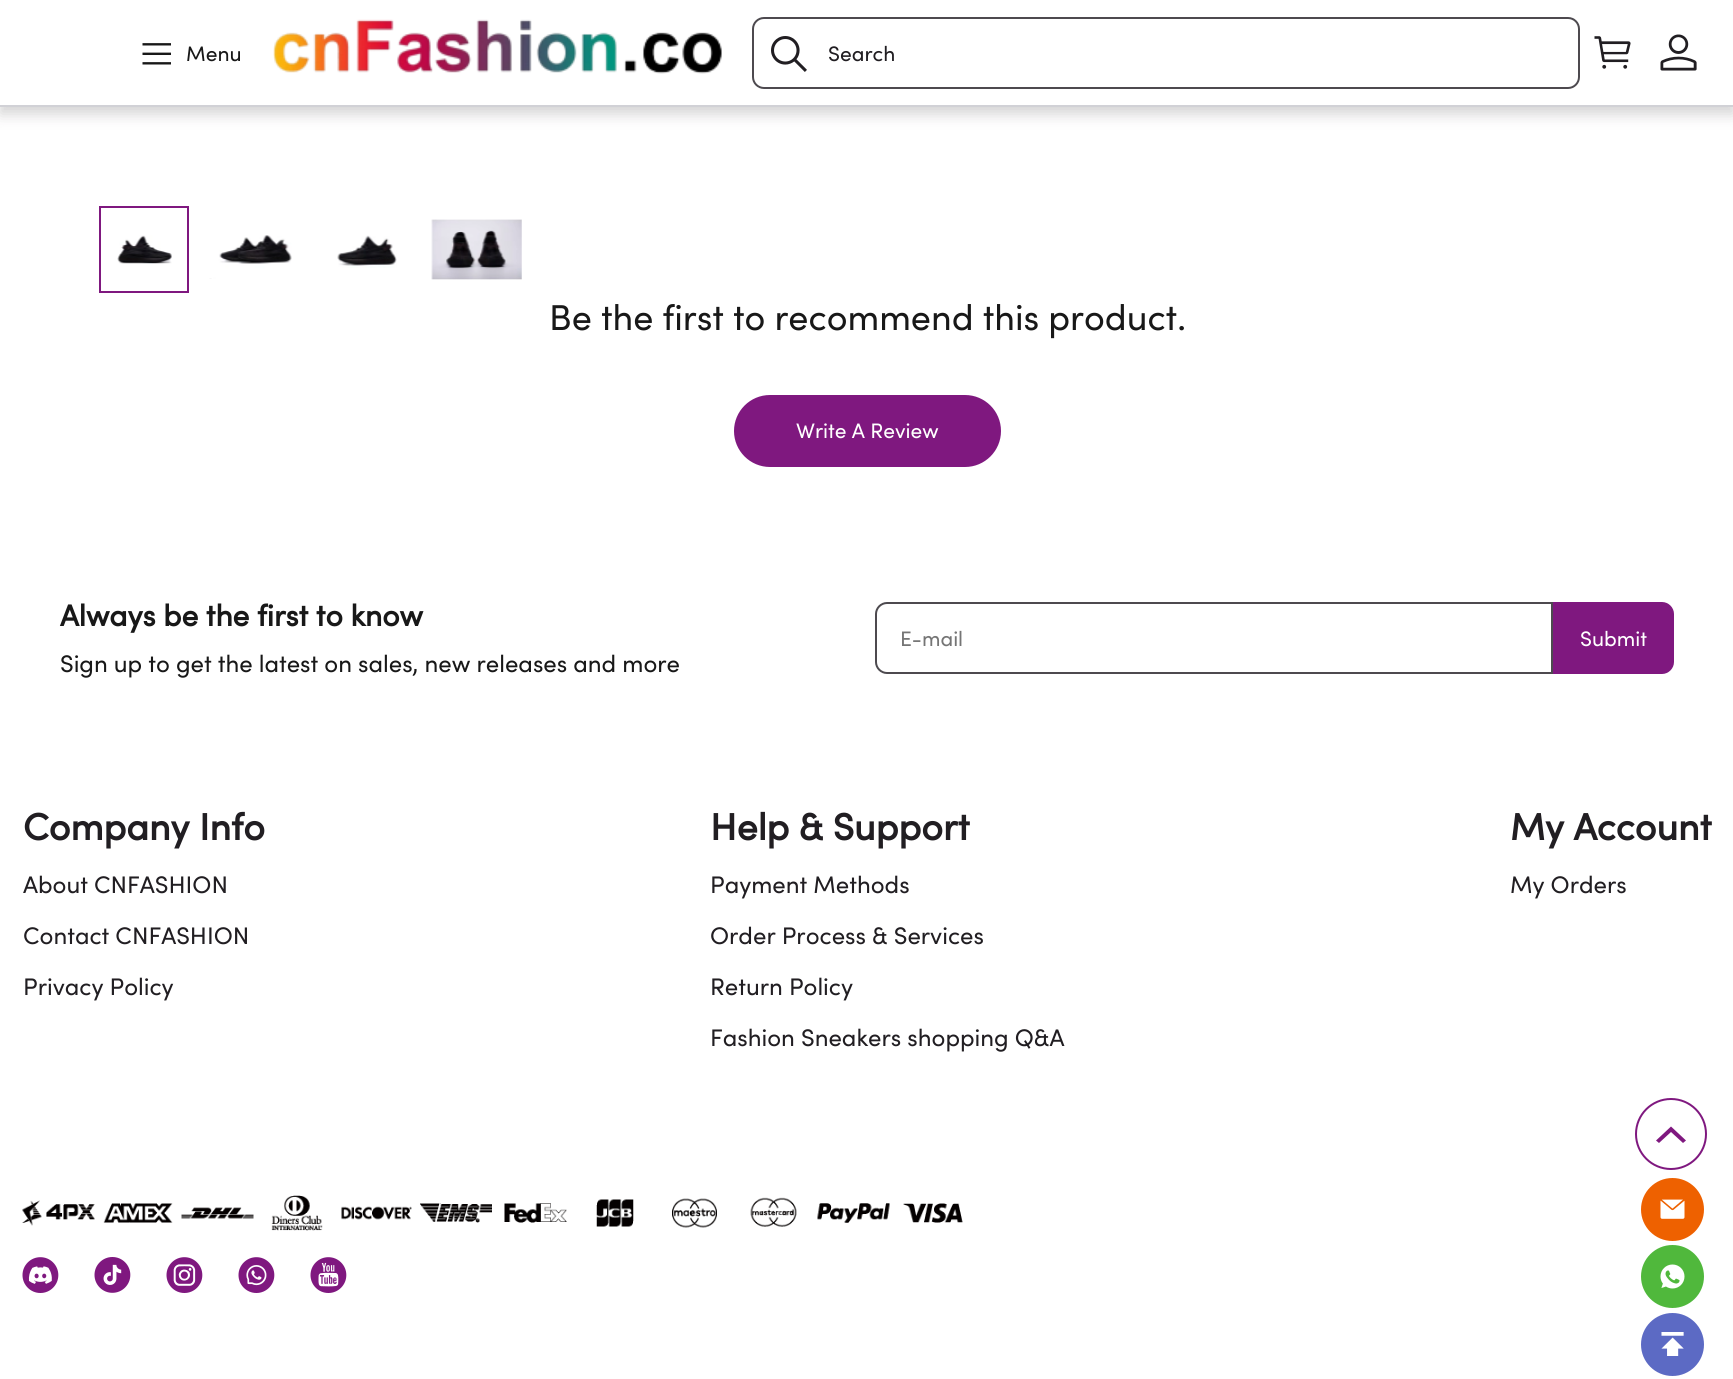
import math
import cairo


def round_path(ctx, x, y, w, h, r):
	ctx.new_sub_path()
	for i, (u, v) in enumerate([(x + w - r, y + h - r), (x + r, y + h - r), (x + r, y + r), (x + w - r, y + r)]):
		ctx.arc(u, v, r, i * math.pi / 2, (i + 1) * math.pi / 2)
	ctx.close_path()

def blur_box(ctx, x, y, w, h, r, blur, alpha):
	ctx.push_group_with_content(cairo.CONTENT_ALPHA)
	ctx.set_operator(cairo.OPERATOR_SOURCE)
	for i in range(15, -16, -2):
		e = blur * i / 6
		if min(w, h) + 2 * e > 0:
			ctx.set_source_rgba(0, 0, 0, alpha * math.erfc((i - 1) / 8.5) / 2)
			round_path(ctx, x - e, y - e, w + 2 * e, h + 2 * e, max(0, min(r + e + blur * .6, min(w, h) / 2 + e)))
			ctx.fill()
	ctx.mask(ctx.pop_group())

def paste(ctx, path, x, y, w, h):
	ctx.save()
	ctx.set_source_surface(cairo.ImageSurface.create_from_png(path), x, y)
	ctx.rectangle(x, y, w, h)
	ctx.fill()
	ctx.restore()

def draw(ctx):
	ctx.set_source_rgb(1, 1, 1)
	ctx.paint()
	ctx.set_source_rgb(0.129, 0.118, 0.133)
	blur_box(ctx, 0, 8, 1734, 106, 0, 7.5, 0.2)
	ctx.set_source_rgb(1, 1, 1)
	ctx.rectangle(0, 0, 1733, 105)
	ctx.fill()
	ctx.set_source_rgb(0.82, 0.82, 0.839)
	ctx.rectangle(0, 105, 1733, 2)
	ctx.fill()
	paste(ctx, 'media/1.png', 142, 43, 29, 22)
	ctx.select_font_face('sofia')
	ctx.set_font_size(21)
	ctx.set_source_rgb(0.094, 0.094, 0.094)
	ctx.move_to(186, 61)
	ctx.show_text('Menu')
	paste(ctx, 'media/2.png', 273, 19, 449, 55)
	round_path(ctx, 753, 18, 826, 70, 11)
	ctx.set_source_rgb(0.302, 0.29, 0.31)
	ctx.stroke()
	paste(ctx, 'media/3.png', 771, 36, 36, 36)
	ctx.set_source_rgb(0.129, 0.118, 0.133)
	ctx.move_to(828, 61)
	ctx.show_text('Search')
	paste(ctx, 'media/4.png', 1594, 36, 37, 33)
	paste(ctx, 'media/5.png', 1660, 34, 37, 37)
	ctx.rectangle(100, 207, 88, 85)
	ctx.set_source_rgb(0.498, 0.094, 0.498)
	ctx.stroke()
	paste(ctx, 'media/6.png', 117, 235, 55, 29)
	paste(ctx, 'media/7.png', 209, 235, 83, 44)
	paste(ctx, 'media/8.png', 337, 235, 60, 33)
	paste(ctx, 'media/9.png', 431, 219, 91, 61)
	ctx.set_font_size(36)
	ctx.set_source_rgb(0.094, 0.094, 0.094)
	ctx.move_to(549, 330)
	ctx.show_text('Be the first to recommend this product.')
	ctx.set_source_rgb(0.498, 0.094, 0.498)
	round_path(ctx, 735, 396, 265, 70, 35)
	ctx.fill_preserve()
	ctx.stroke()
	ctx.set_font_size(21)
	ctx.set_source_rgb(1, 1, 1)
	ctx.move_to(796, 438)
	ctx.show_text('Write A Review')
	ctx.select_font_face('sofia', cairo.FONT_SLANT_NORMAL, cairo.FONT_WEIGHT_BOLD)
	ctx.set_font_size(30)
	ctx.set_source_rgb(0.094, 0.094, 0.094)
	ctx.move_to(60, 626)
	ctx.show_text('Always be the first to know')
	ctx.select_font_face('sofia')
	ctx.set_font_size(24)
	ctx.move_to(60, 672)
	ctx.show_text('Sign up to get the latest on sales, new releases and more')
	ctx.new_path()
	ctx.move_to(887, 603)
	ctx.line_to(1552, 603)
	ctx.line_to(1552, 673)
	ctx.line_to(887, 673)
	ctx.curve_to(881, 673, 876, 668, 876, 662)
	ctx.line_to(876, 614)
	ctx.curve_to(876, 608, 881, 603, 887, 603)
	ctx.close_path()
	ctx.set_source_rgb(0.302, 0.29, 0.31)
	ctx.stroke()
	ctx.set_font_size(21)
	ctx.set_source_rgb(0.459, 0.459, 0.459)
	ctx.move_to(900, 646)
	ctx.show_text('E-mail')
	ctx.set_source_rgb(0.498, 0.094, 0.498)
	ctx.new_path()
	ctx.move_to(1553, 602)
	ctx.line_to(1662, 602)
	ctx.curve_to(1668.5, 602, 1674, 607.5, 1674, 614)
	ctx.line_to(1674, 662)
	ctx.curve_to(1674, 668.5, 1668.5, 674, 1662, 674)
	ctx.line_to(1553, 674)
	ctx.close_path()
	ctx.fill()
	ctx.set_source_rgb(1, 1, 1)
	ctx.move_to(1580, 646)
	ctx.show_text('Submit')
	ctx.select_font_face('sofia', cairo.FONT_SLANT_NORMAL, cairo.FONT_WEIGHT_BOLD)
	ctx.set_font_size(37.5)
	ctx.set_source_rgb(0.129, 0.118, 0.133)
	ctx.move_to(23, 840)
	ctx.show_text('Company Info')
	ctx.select_font_face('sofia')
	ctx.set_font_size(24)
	for x, y, s in [
		(23, 893, 'About CNFASHION'),
		(23, 944, 'Contact CNFASHION'),
		(23, 995, 'Privacy Policy'),
	]:
		ctx.move_to(x, y)
		ctx.show_text(s)
	ctx.select_font_face('sofia', cairo.FONT_SLANT_NORMAL, cairo.FONT_WEIGHT_BOLD)
	ctx.set_font_size(37.5)
	ctx.move_to(710, 840)
	ctx.show_text('Help & Support')
	ctx.select_font_face('sofia')
	ctx.set_font_size(24)
	for x, y, s in [
		(710, 893, 'Payment Methods'),
		(710, 944, 'Order Process & Services'),
		(710, 995, 'Return Policy'),
		(710, 1046, 'Fashion Sneakers shopping Q&A'),
	]:
		ctx.move_to(x, y)
		ctx.show_text(s)
	ctx.select_font_face('sofia', cairo.FONT_SLANT_NORMAL, cairo.FONT_WEIGHT_BOLD)
	ctx.set_font_size(37.5)
	ctx.move_to(1510, 840)
	ctx.show_text('My Account')
	ctx.select_font_face('sofia')
	ctx.set_font_size(24)
	ctx.move_to(1510, 893)
	ctx.show_text('My Orders')
	ctx.new_path()
	ctx.arc(1671, 1134, 35, 0, 2 * math.pi)
	ctx.set_source_rgb(0.498, 0.094, 0.498)
	ctx.stroke()
	ctx.new_path()
	ctx.move_to(1683, 1143)
	ctx.line_to(1671, 1132)
	ctx.line_to(1659, 1143)
	ctx.line_to(1656, 1140.5)
	ctx.line_to(1671, 1126.5)
	ctx.line_to(1686, 1140.5)
	ctx.close_path()
	ctx.fill()
	paste(ctx, 'media/10.png', 22, 1200, 73, 26)
	paste(ctx, 'media/11.png', 103, 1203, 70, 20)
	paste(ctx, 'media/12.png', 181, 1207, 73, 12)
	paste(ctx, 'media/13.png', 271, 1195, 52, 36)
	paste(ctx, 'media/14.png', 341, 1206, 71, 14)
	paste(ctx, 'media/15.png', 420, 1203, 72, 20)
	paste(ctx, 'media/16.png', 504, 1203, 63, 20)
	paste(ctx, 'media/17.png', 596, 1199, 38, 28)
	paste(ctx, 'media/18.png', 672, 1198, 45, 30)
	paste(ctx, 'media/19.png', 750, 1197, 47, 30)
	paste(ctx, 'media/20.png', 817, 1203, 73, 20)
	paste(ctx, 'media/21.png', 903, 1203, 60, 20)
	paste(ctx, 'media/22.png', 22, 1257, 37, 36)
	paste(ctx, 'media/23.png', 94, 1257, 37, 36)
	paste(ctx, 'media/24.png', 166, 1257, 37, 36)
	paste(ctx, 'media/25.png', 238, 1257, 37, 36)
	paste(ctx, 'media/26.png', 310, 1257, 37, 36)
	ctx.set_source_rgb(0.933, 0.38, 0)
	ctx.arc(1672.5, 1209.5, 30, 0, 2 * math.pi)
	ctx.fill_preserve()
	ctx.set_line_width(3)
	ctx.stroke()
	paste(ctx, 'media/27.png', 1660, 1199, 25, 20)
	ctx.set_source_rgb(0.314, 0.722, 0.235)
	ctx.arc(1672.5, 1276.5, 30, 0, 2 * math.pi)
	ctx.fill_preserve()
	ctx.stroke()
	paste(ctx, 'media/28.png', 1660, 1264, 25, 25)
	ctx.set_source_rgb(0.361, 0.416, 0.769)
	ctx.arc(1672.5, 1344.5, 30, 0, 2 * math.pi)
	ctx.fill_preserve()
	ctx.stroke()
	paste(ctx, 'media/29.png', 1661, 1332, 23, 24)


surface = cairo.ImageSurface(cairo.FORMAT_RGB24, 1733, 1379)
ctx = cairo.Context(surface)
options = cairo.FontOptions()
options.set_hint_metrics(cairo.HINT_METRICS_OFF)
options.set_hint_style(cairo.HINT_STYLE_NONE)
ctx.set_font_options(options)
ctx.set_miter_limit(4)
draw(ctx)
surface.write_to_png('image.png')
